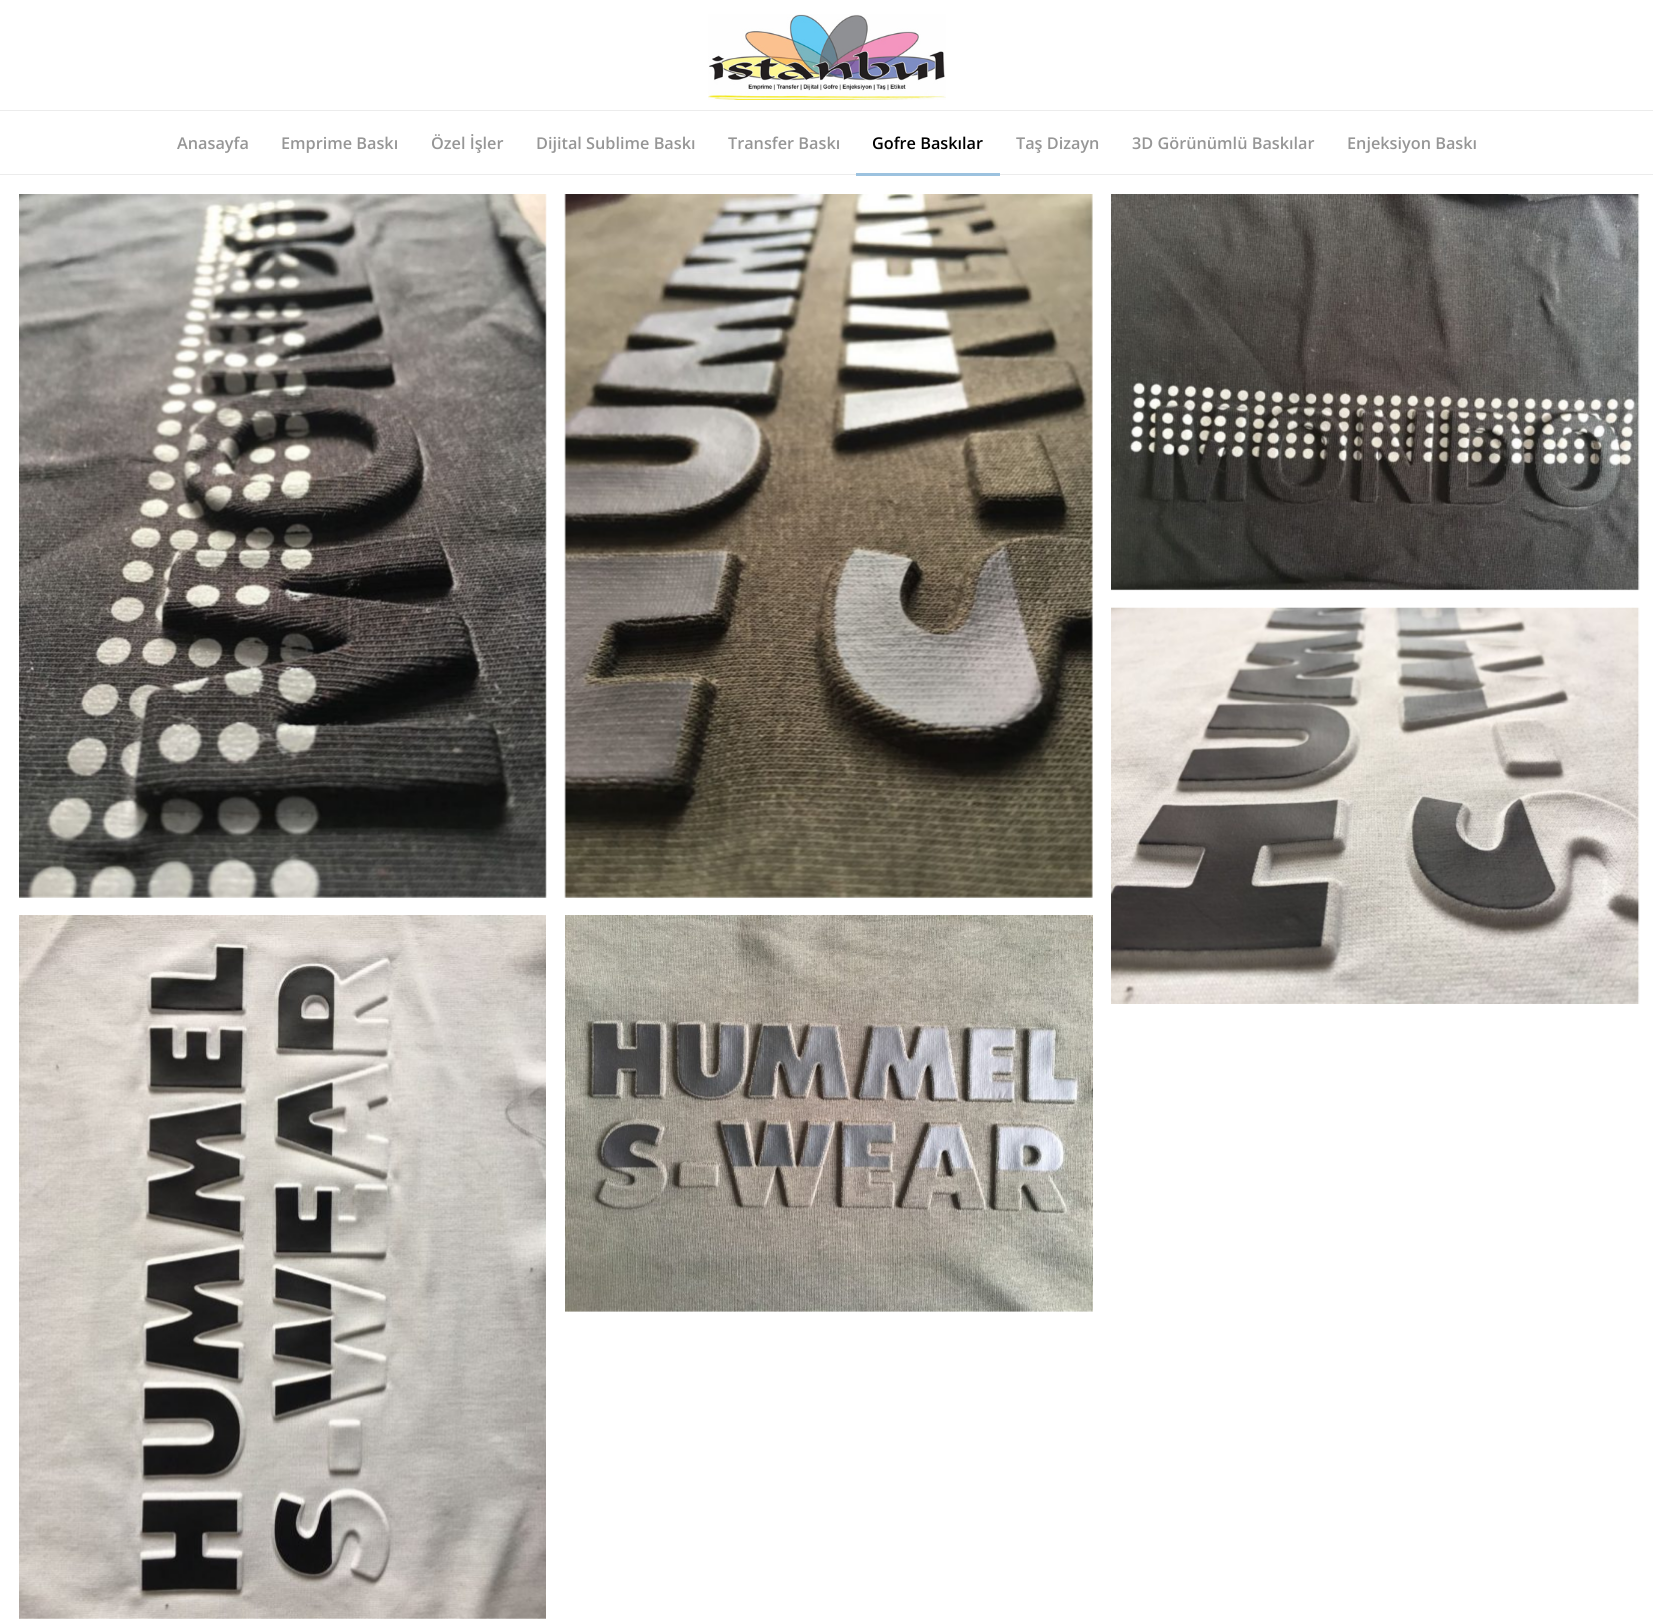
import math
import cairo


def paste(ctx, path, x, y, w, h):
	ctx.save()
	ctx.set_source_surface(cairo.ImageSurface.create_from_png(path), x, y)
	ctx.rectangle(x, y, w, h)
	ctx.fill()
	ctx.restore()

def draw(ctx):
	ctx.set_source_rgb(1, 1, 1)
	ctx.paint()
	ctx.set_source_rgb(0.922, 0.922, 0.922)
	ctx.rectangle(0, 174, 1653, 1)
	ctx.fill()
	paste(ctx, 'media/1.png', 708, 14, 238, 86)
	ctx.rectangle(0, 110, 1653, 1)
	ctx.fill()
	ctx.select_font_face('Open Sans SemiBold')
	ctx.set_font_size(16.25)
	ctx.set_source_rgb(0.588, 0.588, 0.588)
	for x, y, s in [
		(177, 149, 'Anasayfa'),
		(281, 149, 'Emprime Baskı'),
		(431, 149, 'Özel İşler'),
		(536, 149, 'Dijital Sublime Baskı'),
		(728, 149, 'Transfer Baskı'),
	]:
		ctx.move_to(x, y)
		ctx.show_text(s)
	ctx.set_source_rgb(0, 0, 0)
	ctx.move_to(872, 149)
	ctx.show_text('Gofre Baskılar')
	ctx.set_source_rgb(0.612, 0.761, 0.875)
	ctx.rectangle(856, 173, 144, 3)
	ctx.fill()
	ctx.set_source_rgb(0.588, 0.588, 0.588)
	for x, y, s in [
		(1016, 149, 'Taş Dizayn'),
		(1132, 149, '3D Görünümlü Baskılar'),
		(1347, 149, 'Enjeksiyon Baskı'),
	]:
		ctx.move_to(x, y)
		ctx.show_text(s)
	paste(ctx, 'media/2.png', 19, 194, 528, 704)
	paste(ctx, 'media/3.png', 564, 194, 529, 704)
	paste(ctx, 'media/4.png', 1111, 194, 529, 397)
	paste(ctx, 'media/5.png', 1111, 607, 529, 397)
	paste(ctx, 'media/6.png', 19, 915, 527, 704)
	paste(ctx, 'media/7.png', 565, 915, 528, 397)


surface = cairo.ImageSurface(cairo.FORMAT_RGB24, 1653, 1623)
ctx = cairo.Context(surface)
options = cairo.FontOptions()
options.set_hint_metrics(cairo.HINT_METRICS_OFF)
options.set_hint_style(cairo.HINT_STYLE_NONE)
ctx.set_font_options(options)
ctx.set_miter_limit(4)
draw(ctx)
surface.write_to_png('image.png')
